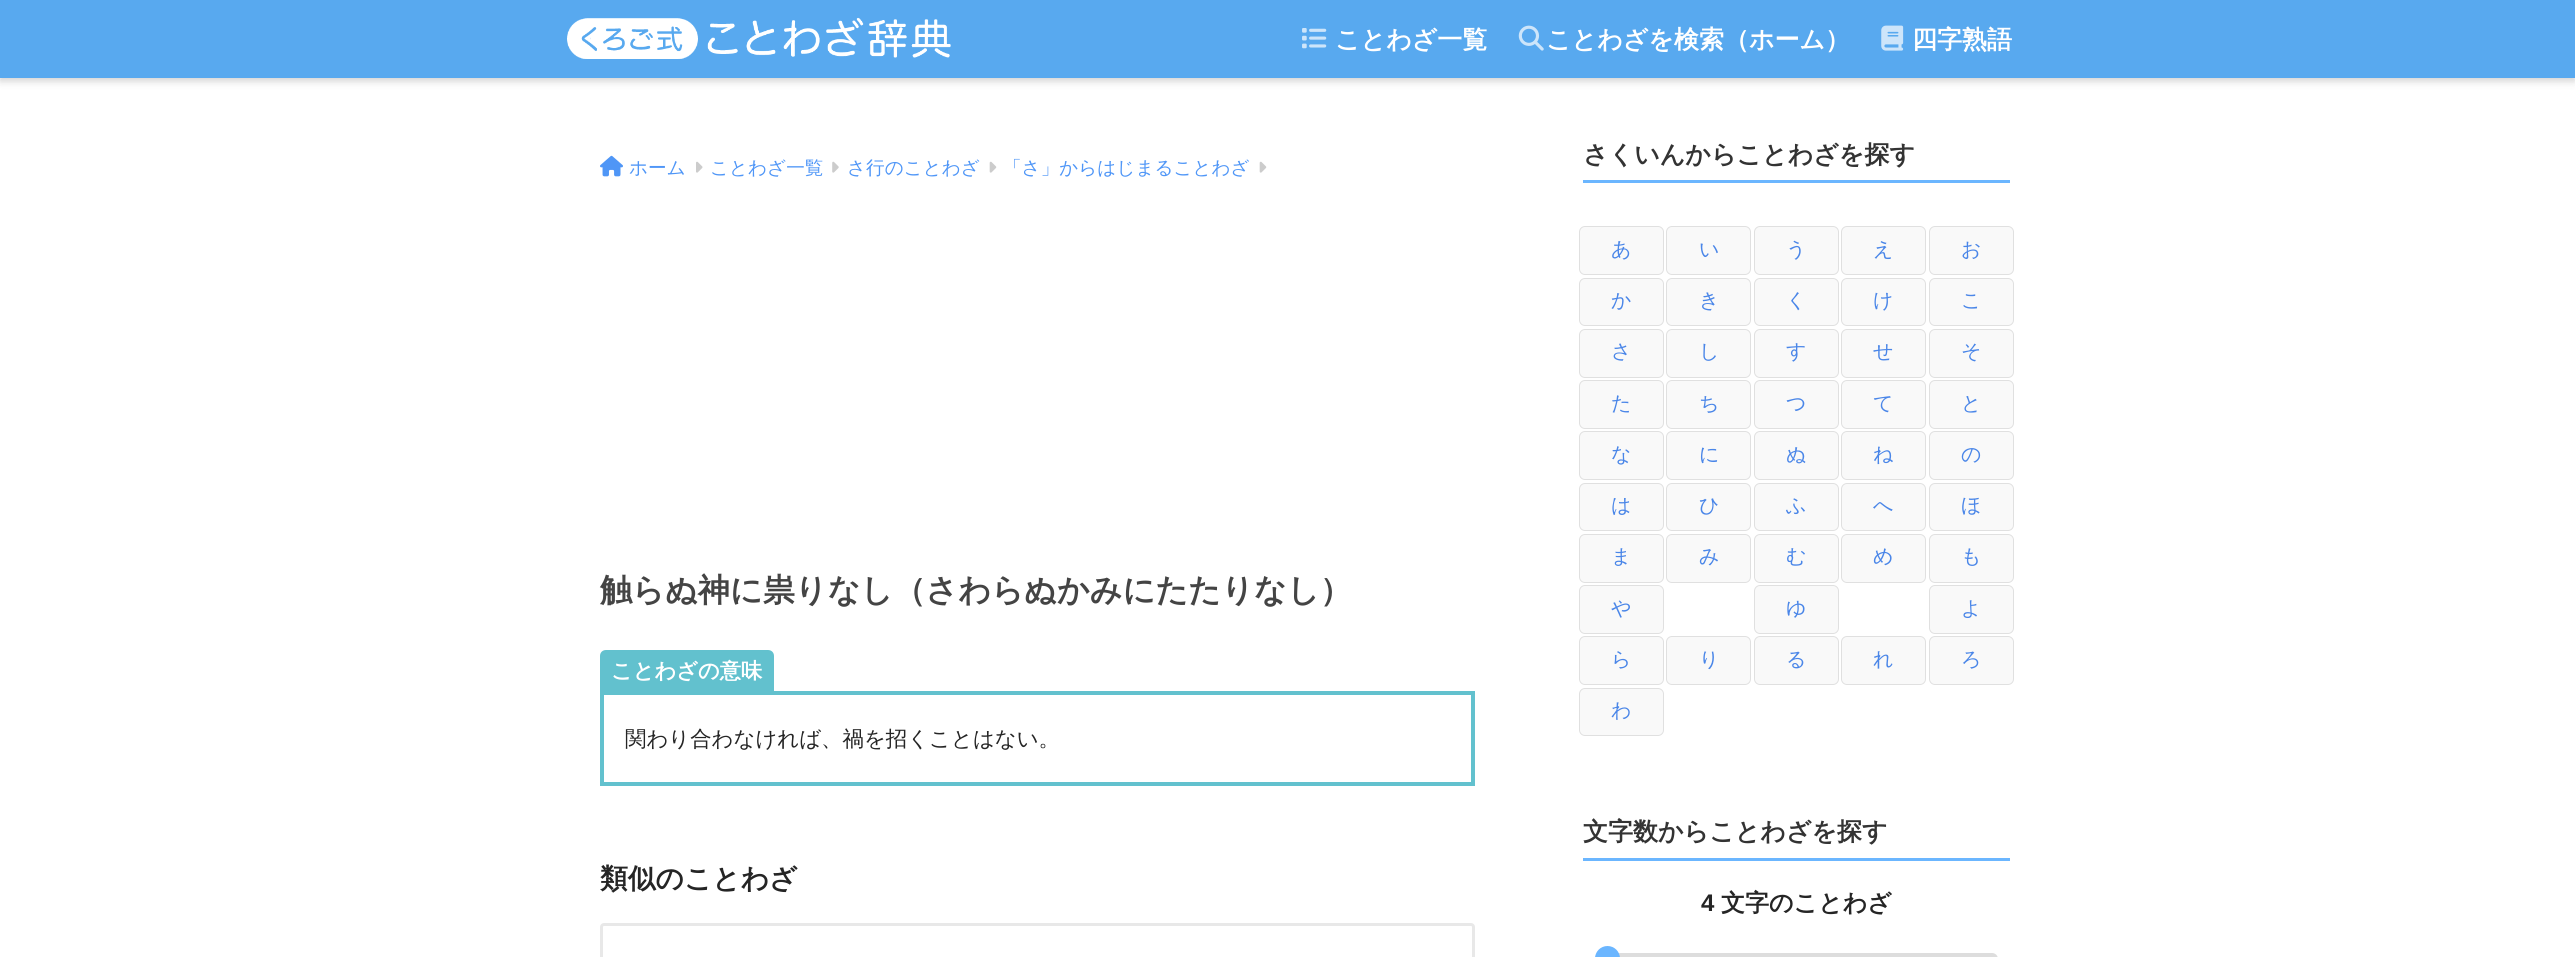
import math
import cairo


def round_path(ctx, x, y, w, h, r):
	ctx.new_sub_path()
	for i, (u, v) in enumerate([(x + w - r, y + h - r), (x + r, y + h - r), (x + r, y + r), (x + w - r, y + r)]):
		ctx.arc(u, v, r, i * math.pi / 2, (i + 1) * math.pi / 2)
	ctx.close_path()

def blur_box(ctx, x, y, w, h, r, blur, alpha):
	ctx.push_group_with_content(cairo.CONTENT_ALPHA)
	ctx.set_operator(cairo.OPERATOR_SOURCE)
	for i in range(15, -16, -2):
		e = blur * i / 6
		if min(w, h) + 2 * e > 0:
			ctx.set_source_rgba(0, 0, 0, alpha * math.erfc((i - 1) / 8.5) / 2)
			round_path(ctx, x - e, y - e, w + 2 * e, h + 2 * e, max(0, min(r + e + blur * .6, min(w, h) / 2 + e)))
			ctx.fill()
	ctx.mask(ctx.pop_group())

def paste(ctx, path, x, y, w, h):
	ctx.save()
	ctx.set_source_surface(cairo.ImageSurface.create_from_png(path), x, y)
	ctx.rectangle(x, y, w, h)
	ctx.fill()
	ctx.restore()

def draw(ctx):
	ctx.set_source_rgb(1, 1, 1)
	ctx.paint()
	ctx.set_source_rgb(0, 0, 0)
	blur_box(ctx, 0, 4, 2575, 77, 0, 4, 0.18)
	ctx.set_source_rgb(0.345, 0.663, 0.937)
	ctx.rectangle(0, 0, 2575, 78)
	ctx.fill()
	paste(ctx, 'media/1.png', 567, 17, 384, 42)
	paste(ctx, 'media/2.png', 1302, 28, 25, 21)
	ctx.select_font_face('WenQuanYi Zen Hei', cairo.FONT_SLANT_NORMAL, cairo.FONT_WEIGHT_BOLD)
	ctx.set_font_size(25)
	ctx.set_source_rgb(1, 1, 1)
	ctx.move_to(1335, 48)
	ctx.show_text('ことわざ一覧')
	paste(ctx, 'media/3.png', 1518, 25, 26, 26)
	ctx.move_to(1546, 48)
	ctx.show_text('ことわざを検索（ホーム）')
	paste(ctx, 'media/4.png', 1881, 25, 23, 26)
	ctx.move_to(1912, 48)
	ctx.show_text('四字熟語')
	paste(ctx, 'media/5.png', 600, 155, 23, 22)
	ctx.select_font_face('WenQuanYi Zen Hei Medium')
	ctx.set_font_size(18.6)
	ctx.set_source_rgb(0.31, 0.588, 0.965)
	ctx.move_to(629, 174)
	ctx.show_text('ホーム')
	paste(ctx, 'media/6.png', 696, 161, 7, 12)
	ctx.move_to(710, 174)
	ctx.show_text('ことわざ一覧')
	paste(ctx, 'media/7.png', 832, 161, 7, 12)
	ctx.move_to(847, 174)
	ctx.show_text('さ行のことわざ')
	paste(ctx, 'media/8.png', 989, 161, 8, 12)
	ctx.move_to(1003, 174)
	ctx.show_text('「さ」からはじまることわざ')
	paste(ctx, 'media/8.png', 1259, 161, 8, 12)
	ctx.select_font_face('WenQuanYi Zen Hei', cairo.FONT_SLANT_NORMAL, cairo.FONT_WEIGHT_BOLD)
	ctx.set_font_size(32.1)
	ctx.set_source_rgb(0.267, 0.267, 0.267)
	ctx.move_to(600, 601)
	ctx.show_text('触らぬ神に祟りなし（さわらぬかみにたたりなし）')
	ctx.set_source_rgb(0.384, 0.757, 0.808)
	ctx.new_path()
	ctx.move_to(606, 650)
	ctx.line_to(768, 650)
	ctx.curve_to(771.5, 650, 774, 652.5, 774, 656)
	ctx.line_to(774, 691)
	ctx.line_to(600, 691)
	ctx.line_to(600, 656)
	ctx.curve_to(600, 652.5, 602.5, 650, 606, 650)
	ctx.close_path()
	ctx.fill()
	ctx.set_font_size(21.25)
	ctx.set_source_rgb(1, 1, 1)
	ctx.move_to(611, 678)
	ctx.show_text('ことわざの意味')
	ctx.rectangle(602, 693, 871, 91)
	ctx.set_source_rgb(0.384, 0.757, 0.808)
	ctx.set_line_width(4)
	ctx.stroke()
	ctx.select_font_face('WenQuanYi Zen Hei Medium')
	ctx.set_font_size(21.4)
	ctx.set_source_rgb(0.145, 0.145, 0.145)
	ctx.move_to(625, 746)
	ctx.show_text('関わり合わなければ、禍を招くことはない。')
	ctx.select_font_face('WenQuanYi Zen Hei', cairo.FONT_SLANT_NORMAL, cairo.FONT_WEIGHT_BOLD)
	ctx.set_font_size(27.75)
	ctx.move_to(600, 888)
	ctx.show_text('類似のことわざ')
	round_path(ctx, 601.5, 924.5, 872, 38, 2.5)
	ctx.set_source_rgb(0.91, 0.91, 0.91)
	ctx.set_line_width(3)
	ctx.stroke()
	ctx.set_source_rgb(0.42, 0.714, 1)
	ctx.rectangle(1583, 180, 427, 3)
	ctx.fill()
	ctx.set_font_size(25)
	ctx.set_source_rgb(0.2, 0.2, 0.2)
	ctx.move_to(1583, 163)
	ctx.show_text('さくいんからことわざを探す')
	ctx.set_source_rgb(0.973, 0.973, 0.973)
	round_path(ctx, 1579.5, 226.5, 84, 48, 5.5)
	ctx.fill_preserve()
	ctx.set_source_rgb(0.878, 0.878, 0.878)
	ctx.set_line_width(1)
	ctx.stroke()
	ctx.select_font_face('WenQuanYi Zen Hei Medium')
	ctx.set_font_size(20)
	ctx.set_source_rgb(0.29, 0.525, 0.91)
	ctx.move_to(1611, 256)
	ctx.show_text('あ')
	ctx.set_source_rgb(0.973, 0.973, 0.973)
	round_path(ctx, 1666.5, 226.5, 84, 48, 5.5)
	ctx.fill_preserve()
	ctx.set_source_rgb(0.878, 0.878, 0.878)
	ctx.stroke()
	ctx.set_source_rgb(0.29, 0.525, 0.91)
	ctx.move_to(1699, 256)
	ctx.show_text('い')
	ctx.set_source_rgb(0.973, 0.973, 0.973)
	round_path(ctx, 1754.5, 226.5, 84, 48, 5.5)
	ctx.fill_preserve()
	ctx.set_source_rgb(0.878, 0.878, 0.878)
	ctx.stroke()
	ctx.set_source_rgb(0.29, 0.525, 0.91)
	ctx.move_to(1786, 256)
	ctx.show_text('う')
	ctx.set_source_rgb(0.973, 0.973, 0.973)
	round_path(ctx, 1841.5, 226.5, 84, 48, 5.5)
	ctx.fill_preserve()
	ctx.set_source_rgb(0.878, 0.878, 0.878)
	ctx.stroke()
	ctx.set_source_rgb(0.29, 0.525, 0.91)
	ctx.move_to(1873, 256)
	ctx.show_text('え')
	ctx.set_source_rgb(0.973, 0.973, 0.973)
	round_path(ctx, 1929.5, 226.5, 84, 48, 5.5)
	ctx.fill_preserve()
	ctx.set_source_rgb(0.878, 0.878, 0.878)
	ctx.stroke()
	ctx.set_source_rgb(0.29, 0.525, 0.91)
	ctx.move_to(1961, 256)
	ctx.show_text('お')
	ctx.set_source_rgb(0.973, 0.973, 0.973)
	round_path(ctx, 1579.5, 278.5, 84, 47, 5.5)
	ctx.fill_preserve()
	ctx.set_source_rgb(0.878, 0.878, 0.878)
	ctx.stroke()
	ctx.set_source_rgb(0.29, 0.525, 0.91)
	ctx.move_to(1611, 307)
	ctx.show_text('か')
	ctx.set_source_rgb(0.973, 0.973, 0.973)
	round_path(ctx, 1666.5, 278.5, 84, 47, 5.5)
	ctx.fill_preserve()
	ctx.set_source_rgb(0.878, 0.878, 0.878)
	ctx.stroke()
	ctx.set_source_rgb(0.29, 0.525, 0.91)
	ctx.move_to(1699, 307)
	ctx.show_text('き')
	ctx.set_source_rgb(0.973, 0.973, 0.973)
	round_path(ctx, 1754.5, 278.5, 84, 47, 5.5)
	ctx.fill_preserve()
	ctx.set_source_rgb(0.878, 0.878, 0.878)
	ctx.stroke()
	ctx.set_source_rgb(0.29, 0.525, 0.91)
	ctx.move_to(1786, 307)
	ctx.show_text('く')
	ctx.set_source_rgb(0.973, 0.973, 0.973)
	round_path(ctx, 1841.5, 278.5, 84, 47, 5.5)
	ctx.fill_preserve()
	ctx.set_source_rgb(0.878, 0.878, 0.878)
	ctx.stroke()
	ctx.set_source_rgb(0.29, 0.525, 0.91)
	ctx.move_to(1873, 307)
	ctx.show_text('け')
	ctx.set_source_rgb(0.973, 0.973, 0.973)
	round_path(ctx, 1929.5, 278.5, 84, 47, 5.5)
	ctx.fill_preserve()
	ctx.set_source_rgb(0.878, 0.878, 0.878)
	ctx.stroke()
	ctx.set_source_rgb(0.29, 0.525, 0.91)
	ctx.move_to(1961, 307)
	ctx.show_text('こ')
	ctx.set_source_rgb(0.973, 0.973, 0.973)
	round_path(ctx, 1579.5, 329.5, 84, 48, 5.5)
	ctx.fill_preserve()
	ctx.set_source_rgb(0.878, 0.878, 0.878)
	ctx.stroke()
	ctx.set_source_rgb(0.29, 0.525, 0.91)
	ctx.move_to(1611, 358)
	ctx.show_text('さ')
	ctx.set_source_rgb(0.973, 0.973, 0.973)
	round_path(ctx, 1666.5, 329.5, 84, 48, 5.5)
	ctx.fill_preserve()
	ctx.set_source_rgb(0.878, 0.878, 0.878)
	ctx.stroke()
	ctx.set_source_rgb(0.29, 0.525, 0.91)
	ctx.move_to(1699, 358)
	ctx.show_text('し')
	ctx.set_source_rgb(0.973, 0.973, 0.973)
	round_path(ctx, 1754.5, 329.5, 84, 48, 5.5)
	ctx.fill_preserve()
	ctx.set_source_rgb(0.878, 0.878, 0.878)
	ctx.stroke()
	ctx.set_source_rgb(0.29, 0.525, 0.91)
	ctx.move_to(1786, 358)
	ctx.show_text('す')
	ctx.set_source_rgb(0.973, 0.973, 0.973)
	round_path(ctx, 1841.5, 329.5, 84, 48, 5.5)
	ctx.fill_preserve()
	ctx.set_source_rgb(0.878, 0.878, 0.878)
	ctx.stroke()
	ctx.set_source_rgb(0.29, 0.525, 0.91)
	ctx.move_to(1873, 358)
	ctx.show_text('せ')
	ctx.set_source_rgb(0.973, 0.973, 0.973)
	round_path(ctx, 1929.5, 329.5, 84, 48, 5.5)
	ctx.fill_preserve()
	ctx.set_source_rgb(0.878, 0.878, 0.878)
	ctx.stroke()
	ctx.set_source_rgb(0.29, 0.525, 0.91)
	ctx.move_to(1961, 358)
	ctx.show_text('そ')
	ctx.set_source_rgb(0.973, 0.973, 0.973)
	round_path(ctx, 1579.5, 380.5, 84, 48, 5.5)
	ctx.fill_preserve()
	ctx.set_source_rgb(0.878, 0.878, 0.878)
	ctx.stroke()
	ctx.set_source_rgb(0.29, 0.525, 0.91)
	ctx.move_to(1611, 410)
	ctx.show_text('た')
	ctx.set_source_rgb(0.973, 0.973, 0.973)
	round_path(ctx, 1666.5, 380.5, 84, 48, 5.5)
	ctx.fill_preserve()
	ctx.set_source_rgb(0.878, 0.878, 0.878)
	ctx.stroke()
	ctx.set_source_rgb(0.29, 0.525, 0.91)
	ctx.move_to(1699, 410)
	ctx.show_text('ち')
	ctx.set_source_rgb(0.973, 0.973, 0.973)
	round_path(ctx, 1754.5, 380.5, 84, 48, 5.5)
	ctx.fill_preserve()
	ctx.set_source_rgb(0.878, 0.878, 0.878)
	ctx.stroke()
	ctx.set_source_rgb(0.29, 0.525, 0.91)
	ctx.move_to(1786, 410)
	ctx.show_text('つ')
	ctx.set_source_rgb(0.973, 0.973, 0.973)
	round_path(ctx, 1841.5, 380.5, 84, 48, 5.5)
	ctx.fill_preserve()
	ctx.set_source_rgb(0.878, 0.878, 0.878)
	ctx.stroke()
	ctx.set_source_rgb(0.29, 0.525, 0.91)
	ctx.move_to(1873, 410)
	ctx.show_text('て')
	ctx.set_source_rgb(0.973, 0.973, 0.973)
	round_path(ctx, 1929.5, 380.5, 84, 48, 5.5)
	ctx.fill_preserve()
	ctx.set_source_rgb(0.878, 0.878, 0.878)
	ctx.stroke()
	ctx.set_source_rgb(0.29, 0.525, 0.91)
	ctx.move_to(1961, 410)
	ctx.show_text('と')
	ctx.set_source_rgb(0.973, 0.973, 0.973)
	round_path(ctx, 1579.5, 431.5, 84, 48, 5.5)
	ctx.fill_preserve()
	ctx.set_source_rgb(0.878, 0.878, 0.878)
	ctx.stroke()
	ctx.set_source_rgb(0.29, 0.525, 0.91)
	ctx.move_to(1611, 461)
	ctx.show_text('な')
	ctx.set_source_rgb(0.973, 0.973, 0.973)
	round_path(ctx, 1666.5, 431.5, 84, 48, 5.5)
	ctx.fill_preserve()
	ctx.set_source_rgb(0.878, 0.878, 0.878)
	ctx.stroke()
	ctx.set_source_rgb(0.29, 0.525, 0.91)
	ctx.move_to(1699, 461)
	ctx.show_text('に')
	ctx.set_source_rgb(0.973, 0.973, 0.973)
	round_path(ctx, 1754.5, 431.5, 84, 48, 5.5)
	ctx.fill_preserve()
	ctx.set_source_rgb(0.878, 0.878, 0.878)
	ctx.stroke()
	ctx.set_source_rgb(0.29, 0.525, 0.91)
	ctx.move_to(1786, 461)
	ctx.show_text('ぬ')
	ctx.set_source_rgb(0.973, 0.973, 0.973)
	round_path(ctx, 1841.5, 431.5, 84, 48, 5.5)
	ctx.fill_preserve()
	ctx.set_source_rgb(0.878, 0.878, 0.878)
	ctx.stroke()
	ctx.set_source_rgb(0.29, 0.525, 0.91)
	ctx.move_to(1873, 461)
	ctx.show_text('ね')
	ctx.set_source_rgb(0.973, 0.973, 0.973)
	round_path(ctx, 1929.5, 431.5, 84, 48, 5.5)
	ctx.fill_preserve()
	ctx.set_source_rgb(0.878, 0.878, 0.878)
	ctx.stroke()
	ctx.set_source_rgb(0.29, 0.525, 0.91)
	ctx.move_to(1961, 461)
	ctx.show_text('の')
	ctx.set_source_rgb(0.973, 0.973, 0.973)
	round_path(ctx, 1579.5, 483.5, 84, 47, 5.5)
	ctx.fill_preserve()
	ctx.set_source_rgb(0.878, 0.878, 0.878)
	ctx.stroke()
	ctx.set_source_rgb(0.29, 0.525, 0.91)
	ctx.move_to(1611, 512)
	ctx.show_text('は')
	ctx.set_source_rgb(0.973, 0.973, 0.973)
	round_path(ctx, 1666.5, 483.5, 84, 47, 5.5)
	ctx.fill_preserve()
	ctx.set_source_rgb(0.878, 0.878, 0.878)
	ctx.stroke()
	ctx.set_source_rgb(0.29, 0.525, 0.91)
	ctx.move_to(1699, 512)
	ctx.show_text('ひ')
	ctx.set_source_rgb(0.973, 0.973, 0.973)
	round_path(ctx, 1754.5, 483.5, 84, 47, 5.5)
	ctx.fill_preserve()
	ctx.set_source_rgb(0.878, 0.878, 0.878)
	ctx.stroke()
	ctx.set_source_rgb(0.29, 0.525, 0.91)
	ctx.move_to(1786, 512)
	ctx.show_text('ふ')
	ctx.set_source_rgb(0.973, 0.973, 0.973)
	round_path(ctx, 1841.5, 483.5, 84, 47, 5.5)
	ctx.fill_preserve()
	ctx.set_source_rgb(0.878, 0.878, 0.878)
	ctx.stroke()
	ctx.set_source_rgb(0.29, 0.525, 0.91)
	ctx.move_to(1873, 512)
	ctx.show_text('へ')
	ctx.set_source_rgb(0.973, 0.973, 0.973)
	round_path(ctx, 1929.5, 483.5, 84, 47, 5.5)
	ctx.fill_preserve()
	ctx.set_source_rgb(0.878, 0.878, 0.878)
	ctx.stroke()
	ctx.set_source_rgb(0.29, 0.525, 0.91)
	ctx.move_to(1961, 512)
	ctx.show_text('ほ')
	ctx.set_source_rgb(0.973, 0.973, 0.973)
	round_path(ctx, 1579.5, 534.5, 84, 48, 5.5)
	ctx.fill_preserve()
	ctx.set_source_rgb(0.878, 0.878, 0.878)
	ctx.stroke()
	ctx.set_source_rgb(0.29, 0.525, 0.91)
	ctx.move_to(1611, 563)
	ctx.show_text('ま')
	ctx.set_source_rgb(0.973, 0.973, 0.973)
	round_path(ctx, 1666.5, 534.5, 84, 48, 5.5)
	ctx.fill_preserve()
	ctx.set_source_rgb(0.878, 0.878, 0.878)
	ctx.stroke()
	ctx.set_source_rgb(0.29, 0.525, 0.91)
	ctx.move_to(1699, 563)
	ctx.show_text('み')
	ctx.set_source_rgb(0.973, 0.973, 0.973)
	round_path(ctx, 1754.5, 534.5, 84, 48, 5.5)
	ctx.fill_preserve()
	ctx.set_source_rgb(0.878, 0.878, 0.878)
	ctx.stroke()
	ctx.set_source_rgb(0.29, 0.525, 0.91)
	ctx.move_to(1786, 563)
	ctx.show_text('む')
	ctx.set_source_rgb(0.973, 0.973, 0.973)
	round_path(ctx, 1841.5, 534.5, 84, 48, 5.5)
	ctx.fill_preserve()
	ctx.set_source_rgb(0.878, 0.878, 0.878)
	ctx.stroke()
	ctx.set_source_rgb(0.29, 0.525, 0.91)
	ctx.move_to(1873, 563)
	ctx.show_text('め')
	ctx.set_source_rgb(0.973, 0.973, 0.973)
	round_path(ctx, 1929.5, 534.5, 84, 48, 5.5)
	ctx.fill_preserve()
	ctx.set_source_rgb(0.878, 0.878, 0.878)
	ctx.stroke()
	ctx.set_source_rgb(0.29, 0.525, 0.91)
	ctx.move_to(1961, 563)
	ctx.show_text('も')
	ctx.set_source_rgb(0.973, 0.973, 0.973)
	round_path(ctx, 1579.5, 585.5, 84, 48, 5.5)
	ctx.fill_preserve()
	ctx.set_source_rgb(0.878, 0.878, 0.878)
	ctx.stroke()
	ctx.set_source_rgb(0.29, 0.525, 0.91)
	ctx.move_to(1611, 615)
	ctx.show_text('や')
	ctx.set_source_rgb(0.973, 0.973, 0.973)
	round_path(ctx, 1754.5, 585.5, 84, 48, 5.5)
	ctx.fill_preserve()
	ctx.set_source_rgb(0.878, 0.878, 0.878)
	ctx.stroke()
	ctx.set_source_rgb(0.29, 0.525, 0.91)
	ctx.move_to(1786, 615)
	ctx.show_text('ゆ')
	ctx.set_source_rgb(0.973, 0.973, 0.973)
	round_path(ctx, 1929.5, 585.5, 84, 48, 5.5)
	ctx.fill_preserve()
	ctx.set_source_rgb(0.878, 0.878, 0.878)
	ctx.stroke()
	ctx.set_source_rgb(0.29, 0.525, 0.91)
	ctx.move_to(1961, 615)
	ctx.show_text('よ')
	ctx.set_source_rgb(0.973, 0.973, 0.973)
	round_path(ctx, 1579.5, 636.5, 84, 48, 5.5)
	ctx.fill_preserve()
	ctx.set_source_rgb(0.878, 0.878, 0.878)
	ctx.stroke()
	ctx.set_source_rgb(0.29, 0.525, 0.91)
	ctx.move_to(1611, 666)
	ctx.show_text('ら')
	ctx.set_source_rgb(0.973, 0.973, 0.973)
	round_path(ctx, 1666.5, 636.5, 84, 48, 5.5)
	ctx.fill_preserve()
	ctx.set_source_rgb(0.878, 0.878, 0.878)
	ctx.stroke()
	ctx.set_source_rgb(0.29, 0.525, 0.91)
	ctx.move_to(1699, 666)
	ctx.show_text('り')
	ctx.set_source_rgb(0.973, 0.973, 0.973)
	round_path(ctx, 1754.5, 636.5, 84, 48, 5.5)
	ctx.fill_preserve()
	ctx.set_source_rgb(0.878, 0.878, 0.878)
	ctx.stroke()
	ctx.set_source_rgb(0.29, 0.525, 0.91)
	ctx.move_to(1786, 666)
	ctx.show_text('る')
	ctx.set_source_rgb(0.973, 0.973, 0.973)
	round_path(ctx, 1841.5, 636.5, 84, 48, 5.5)
	ctx.fill_preserve()
	ctx.set_source_rgb(0.878, 0.878, 0.878)
	ctx.stroke()
	ctx.set_source_rgb(0.29, 0.525, 0.91)
	ctx.move_to(1873, 666)
	ctx.show_text('れ')
	ctx.set_source_rgb(0.973, 0.973, 0.973)
	round_path(ctx, 1929.5, 636.5, 84, 48, 5.5)
	ctx.fill_preserve()
	ctx.set_source_rgb(0.878, 0.878, 0.878)
	ctx.stroke()
	ctx.set_source_rgb(0.29, 0.525, 0.91)
	ctx.move_to(1961, 666)
	ctx.show_text('ろ')
	ctx.set_source_rgb(0.973, 0.973, 0.973)
	round_path(ctx, 1579.5, 688.5, 84, 47, 5.5)
	ctx.fill_preserve()
	ctx.set_source_rgb(0.878, 0.878, 0.878)
	ctx.stroke()
	ctx.set_source_rgb(0.29, 0.525, 0.91)
	ctx.move_to(1611, 717)
	ctx.show_text('わ')
	ctx.set_source_rgb(0.42, 0.714, 1)
	ctx.rectangle(1583, 858, 427, 3)
	ctx.fill()
	ctx.select_font_face('WenQuanYi Zen Hei', cairo.FONT_SLANT_NORMAL, cairo.FONT_WEIGHT_BOLD)
	ctx.set_font_size(25)
	ctx.set_source_rgb(0.2, 0.2, 0.2)
	ctx.move_to(1583, 840)
	ctx.show_text('文字数からことわざを探す')
	ctx.select_font_face('Liberation Sans', cairo.FONT_SLANT_NORMAL, cairo.FONT_WEIGHT_BOLD)
	ctx.set_font_size(24)
	ctx.set_source_rgb(0.145, 0.145, 0.145)
	ctx.move_to(1701, 911)
	ctx.show_text('4')
	ctx.select_font_face('WenQuanYi Zen Hei', cairo.FONT_SLANT_NORMAL, cairo.FONT_WEIGHT_BOLD)
	ctx.move_to(1721, 911)
	ctx.show_text('文字のことわざ')
	ctx.set_source_rgb(0.867, 0.867, 0.867)
	round_path(ctx, 1595, 953, 403, 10, 6)
	ctx.fill()
	ctx.set_source_rgb(0.42, 0.714, 1)
	round_path(ctx, 1595, 946, 25, 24, 12.5)
	ctx.fill()


surface = cairo.ImageSurface(cairo.FORMAT_RGB24, 2575, 957)
ctx = cairo.Context(surface)
options = cairo.FontOptions()
options.set_hint_metrics(cairo.HINT_METRICS_OFF)
options.set_hint_style(cairo.HINT_STYLE_NONE)
ctx.set_font_options(options)
ctx.set_miter_limit(4)
draw(ctx)
surface.write_to_png('image.png')
